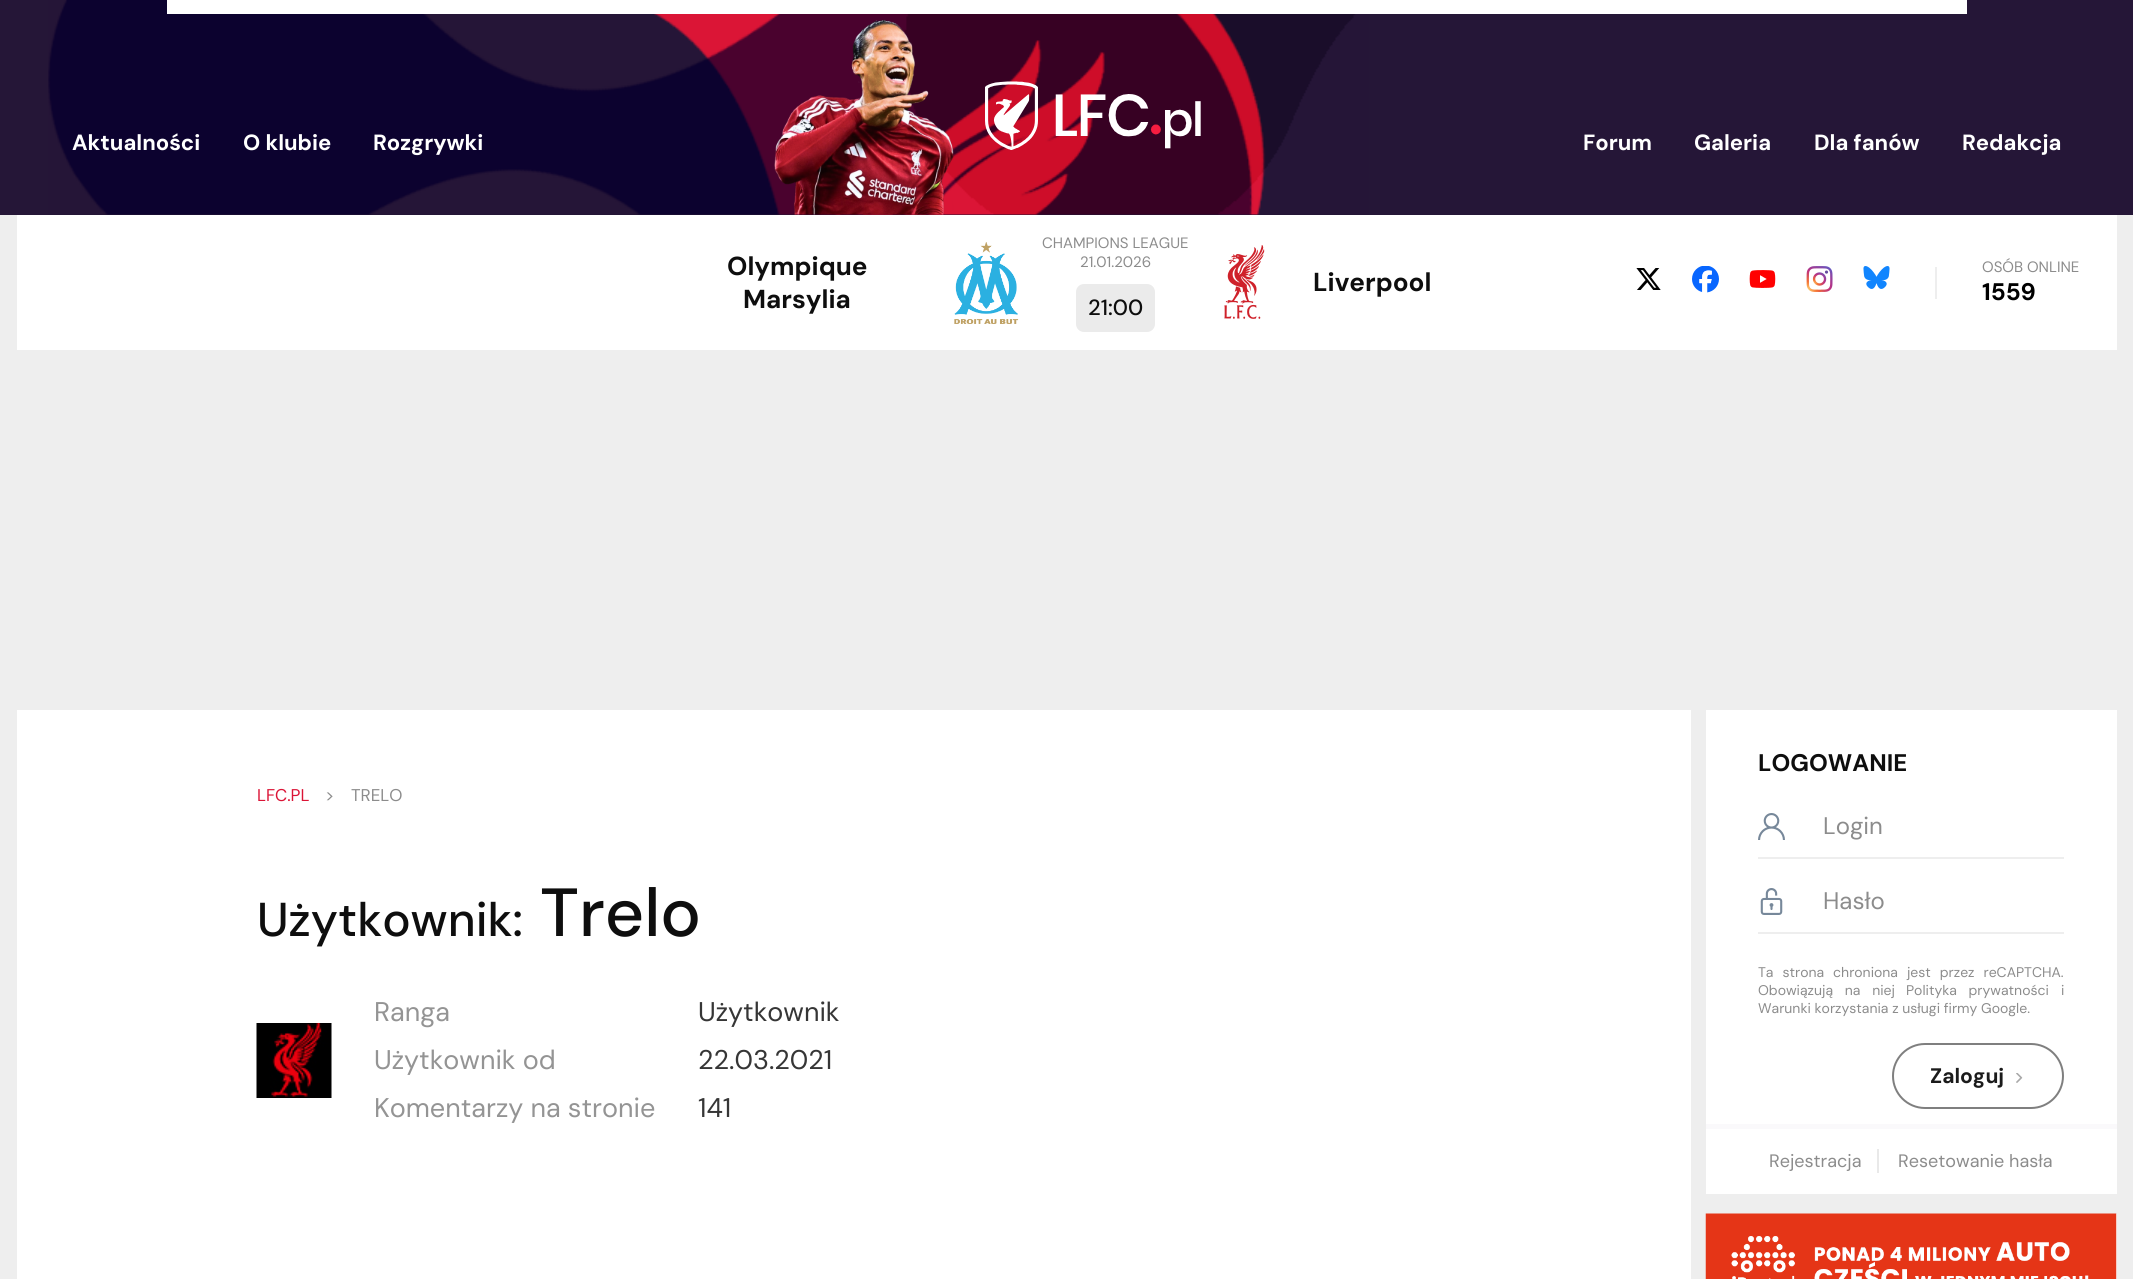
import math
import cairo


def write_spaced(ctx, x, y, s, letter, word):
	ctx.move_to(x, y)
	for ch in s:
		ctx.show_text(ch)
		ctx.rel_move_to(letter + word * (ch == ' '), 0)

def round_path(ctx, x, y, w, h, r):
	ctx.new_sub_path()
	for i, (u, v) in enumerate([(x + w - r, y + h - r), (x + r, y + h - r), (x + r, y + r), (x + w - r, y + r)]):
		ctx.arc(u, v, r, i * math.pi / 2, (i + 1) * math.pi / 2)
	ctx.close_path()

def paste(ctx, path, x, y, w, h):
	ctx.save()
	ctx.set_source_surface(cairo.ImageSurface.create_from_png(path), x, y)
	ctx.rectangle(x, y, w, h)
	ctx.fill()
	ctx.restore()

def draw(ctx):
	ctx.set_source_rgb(0.933, 0.933, 0.933)
	ctx.paint()
	ctx.set_source_rgb(0.145, 0.086, 0.216)
	ctx.rectangle(0, 0, 2133, 215)
	ctx.fill()
	paste(ctx, 'media/1.png', 48, 0, 1321, 215)
	ctx.set_source_rgb(1, 1, 1)
	ctx.rectangle(167, 0, 1800, 14)
	ctx.fill()
	ctx.select_font_face('DM Sans', cairo.FONT_SLANT_NORMAL, cairo.FONT_WEIGHT_BOLD)
	ctx.set_font_size(22)
	for x, y, s in [
		(72, 150, 'Aktualności'),
		(243, 150, 'O klubie'),
		(373, 150, 'Rozgrywki'),
	]:
		ctx.move_to(x, y)
		ctx.show_text(s)
	paste(ctx, 'media/2.png', 774, 19, 180, 196)
	paste(ctx, 'media/3.png', 985, 81, 216, 69)
	for x, y, s in [
		(1583, 150, 'Forum'),
		(1694, 150, 'Galeria'),
		(1814, 150, 'Dla fanów'),
		(1962, 150, 'Redakcja'),
	]:
		ctx.move_to(x, y)
		ctx.show_text(s)
	ctx.rectangle(17, 215, 2100, 135)
	ctx.fill()
	ctx.set_font_size(26)
	ctx.set_source_rgb(0.055, 0.055, 0.055)
	ctx.move_to(727, 275)
	ctx.show_text('Olympique')
	ctx.move_to(743, 308)
	ctx.show_text('Marsylia')
	paste(ctx, 'media/4.png', 954, 242, 65, 82)
	ctx.select_font_face('DM Sans')
	ctx.set_font_size(15)
	ctx.set_source_rgb(0.549, 0.549, 0.549)
	ctx.move_to(1042, 248)
	ctx.show_text('CHAMPIONS LEAGUE')
	ctx.move_to(1080, 267)
	ctx.show_text('21.01.2026')
	ctx.set_source_rgb(0.918, 0.918, 0.918)
	round_path(ctx, 1076, 284, 79, 48, 8)
	ctx.fill()
	ctx.select_font_face('DM Sans Medium')
	ctx.set_font_size(22)
	ctx.set_source_rgb(0.055, 0.055, 0.055)
	ctx.move_to(1088, 315)
	ctx.show_text('21:00')
	paste(ctx, 'media/5.png', 1224, 245, 41, 74)
	ctx.select_font_face('DM Sans', cairo.FONT_SLANT_NORMAL, cairo.FONT_WEIGHT_BOLD)
	ctx.set_font_size(26)
	ctx.move_to(1313, 291)
	ctx.show_text('Liverpool')
	paste(ctx, 'media/6.png', 1636, 268, 25, 22)
	paste(ctx, 'media/7.png', 1692, 266, 27, 27)
	paste(ctx, 'media/8.png', 1749, 270, 27, 18)
	paste(ctx, 'media/9.png', 1806, 266, 27, 26)
	paste(ctx, 'media/10.png', 1863, 266, 27, 23)
	ctx.set_source_rgb(0.933, 0.933, 0.933)
	ctx.rectangle(1935, 267, 2, 32)
	ctx.fill()
	ctx.select_font_face('DM Sans')
	ctx.set_font_size(15)
	ctx.set_source_rgb(0.549, 0.549, 0.549)
	ctx.move_to(1982, 272)
	ctx.show_text('OSÓB ONLINE')
	ctx.select_font_face('DM Sans', cairo.FONT_SLANT_NORMAL, cairo.FONT_WEIGHT_BOLD)
	ctx.set_font_size(24)
	ctx.set_source_rgb(0, 0, 0)
	ctx.move_to(1982, 300)
	ctx.show_text('1559')
	ctx.set_source_rgb(1, 1, 1)
	ctx.rectangle(17, 710, 1674, 569)
	ctx.fill()
	ctx.select_font_face('DM Sans')
	ctx.set_font_size(17)
	ctx.set_source_rgb(0.859, 0.082, 0.212)
	ctx.move_to(257, 801)
	ctx.show_text('LFC.PL')
	ctx.set_source_rgb(0.549, 0.549, 0.549)
	ctx.move_to(325, 801)
	ctx.show_text('>')
	ctx.move_to(351, 801)
	ctx.show_text('TRELO')
	ctx.select_font_face('DM Sans Medium')
	ctx.set_font_size(47.5)
	ctx.set_source_rgb(0.055, 0.055, 0.055)
	ctx.move_to(257, 936)
	ctx.show_text('Użytkownik:')
	ctx.set_font_size(68)
	ctx.move_to(540, 936)
	ctx.show_text('Trelo')
	paste(ctx, 'media/11.png', 256, 1023, 76, 75)
	ctx.select_font_face('DM Sans')
	ctx.set_font_size(27)
	ctx.set_source_rgb(0.58, 0.58, 0.58)
	ctx.move_to(374, 1021)
	ctx.show_text('Ranga')
	ctx.set_source_rgb(0.212, 0.212, 0.212)
	ctx.move_to(698, 1021)
	ctx.show_text('Użytkownik')
	ctx.set_source_rgb(0.58, 0.58, 0.58)
	ctx.move_to(374, 1069)
	ctx.show_text('Użytkownik od')
	ctx.set_source_rgb(0.212, 0.212, 0.212)
	ctx.move_to(698, 1069)
	ctx.show_text('22.03.2021')
	ctx.set_source_rgb(0.58, 0.58, 0.58)
	ctx.move_to(374, 1117)
	ctx.show_text('Komentarzy na stronie')
	ctx.set_source_rgb(0.212, 0.212, 0.212)
	ctx.move_to(698, 1117)
	ctx.show_text('141')
	ctx.set_source_rgb(1, 1, 1)
	ctx.rectangle(1706, 710, 411, 484)
	ctx.fill()
	ctx.select_font_face('DM Sans', cairo.FONT_SLANT_NORMAL, cairo.FONT_WEIGHT_BOLD)
	ctx.set_font_size(24)
	ctx.set_source_rgb(0.055, 0.055, 0.055)
	ctx.move_to(1758, 771)
	ctx.show_text('LOGOWANIE')
	ctx.set_source_rgb(0.933, 0.933, 0.933)
	ctx.rectangle(1758, 857, 306, 2)
	ctx.fill()
	paste(ctx, 'media/12.png', 1758, 813, 27, 27)
	ctx.select_font_face('DM Sans')
	ctx.set_source_rgb(0.549, 0.549, 0.549)
	ctx.move_to(1823, 834)
	ctx.show_text('Login')
	ctx.set_source_rgb(0.933, 0.933, 0.933)
	ctx.rectangle(1758, 932, 306, 2)
	ctx.fill()
	paste(ctx, 'media/13.png', 1760, 888, 23, 27)
	ctx.set_source_rgb(0.549, 0.549, 0.549)
	ctx.move_to(1823, 909)
	ctx.show_text('Hasło')
	ctx.set_font_size(14)
	write_spaced(ctx, 1758, 977, 'Ta strona chroniona jest przez reCAPTCHA.', 0, 5.25)
	write_spaced(ctx, 1758, 995, 'Obowiązują na niej', 0, 8)
	write_spaced(ctx, 1906, 995, 'Polityka prywatności', 0, 8)
	ctx.move_to(2061, 995)
	ctx.show_text('i')
	ctx.move_to(1758, 1013)
	ctx.show_text('Warunki korzystania z usługi firmy Google.')
	round_path(ctx, 1893, 1044, 170, 64, 32)
	ctx.set_source_rgb(0.498, 0.498, 0.498)
	ctx.stroke()
	ctx.select_font_face('DM Sans', cairo.FONT_SLANT_NORMAL, cairo.FONT_WEIGHT_BOLD)
	ctx.set_font_size(21)
	ctx.set_source_rgb(0.106, 0.106, 0.106)
	ctx.move_to(1930, 1083)
	ctx.show_text('Zaloguj')
	paste(ctx, 'media/14.png', 2016, 1073, 7, 10)
	ctx.set_source_rgb(0.98, 0.976, 0.984)
	ctx.rectangle(1706, 1124, 411, 5)
	ctx.fill()
	ctx.select_font_face('DM Sans')
	ctx.set_font_size(18)
	ctx.set_source_rgb(0.549, 0.549, 0.549)
	ctx.move_to(1769, 1167)
	ctx.show_text('Rejestracja')
	ctx.set_source_rgb(0.914, 0.914, 0.914)
	ctx.rectangle(1877, 1149, 2, 24)
	ctx.fill()
	ctx.set_source_rgb(0.549, 0.549, 0.549)
	ctx.move_to(1898, 1167)
	ctx.show_text('Resetowanie hasła')
	ctx.set_source_rgb(1, 1, 1)
	ctx.rectangle(2116, 1214, 1, 65)
	ctx.fill()
	paste(ctx, 'media/15.png', 1705, 1213, 412, 66)


surface = cairo.ImageSurface(cairo.FORMAT_RGB24, 2133, 1279)
ctx = cairo.Context(surface)
options = cairo.FontOptions()
options.set_hint_metrics(cairo.HINT_METRICS_OFF)
options.set_hint_style(cairo.HINT_STYLE_NONE)
ctx.set_font_options(options)
ctx.set_miter_limit(4)
draw(ctx)
surface.write_to_png('image.png')
